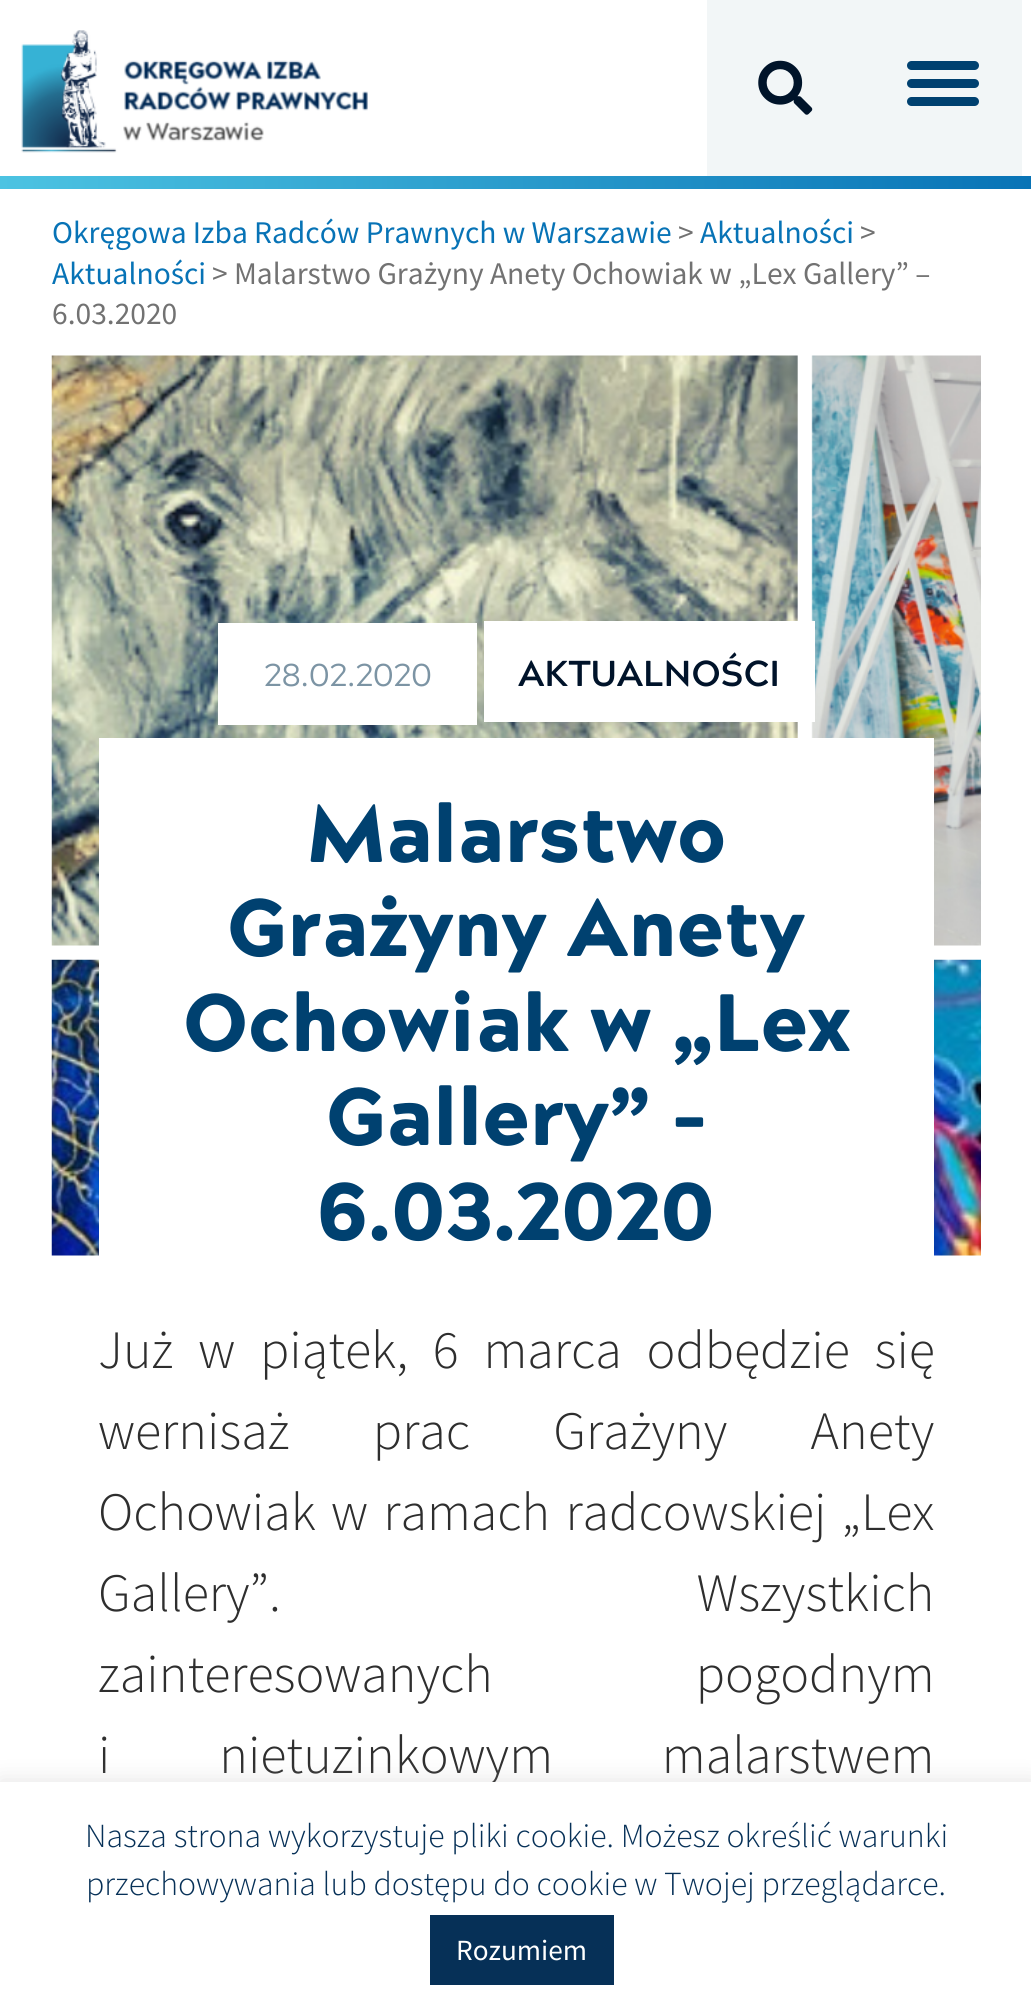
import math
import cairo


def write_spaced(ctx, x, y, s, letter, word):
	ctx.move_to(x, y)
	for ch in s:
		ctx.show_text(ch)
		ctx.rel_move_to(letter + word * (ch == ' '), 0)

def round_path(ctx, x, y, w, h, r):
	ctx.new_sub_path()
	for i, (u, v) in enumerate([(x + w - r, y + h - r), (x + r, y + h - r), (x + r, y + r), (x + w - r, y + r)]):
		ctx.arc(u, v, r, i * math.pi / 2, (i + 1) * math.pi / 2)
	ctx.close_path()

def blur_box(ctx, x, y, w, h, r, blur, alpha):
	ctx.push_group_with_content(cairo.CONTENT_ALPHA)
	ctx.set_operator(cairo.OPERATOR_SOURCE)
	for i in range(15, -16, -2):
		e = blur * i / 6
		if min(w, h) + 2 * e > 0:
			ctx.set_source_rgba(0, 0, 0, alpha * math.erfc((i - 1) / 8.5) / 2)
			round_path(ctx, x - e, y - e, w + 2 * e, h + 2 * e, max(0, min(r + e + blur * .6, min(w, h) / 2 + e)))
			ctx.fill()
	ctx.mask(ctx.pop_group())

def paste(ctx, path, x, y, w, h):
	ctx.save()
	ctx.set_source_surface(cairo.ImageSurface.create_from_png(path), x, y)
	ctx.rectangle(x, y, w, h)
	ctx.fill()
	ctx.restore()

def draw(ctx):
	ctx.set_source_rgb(1, 1, 1)
	ctx.paint()
	paste(ctx, 'media/1.png', 21, 30, 347, 123)
	ctx.set_source_rgb(0.949, 0.961, 0.965)
	ctx.rectangle(707, 0, 315, 176)
	ctx.fill()
	paste(ctx, 'media/2.png', 758, 60, 55, 55)
	ctx.set_source_rgb(0, 0.255, 0.439)
	round_path(ctx, 907, 61, 72, 9, 4.5)
	ctx.fill()
	round_path(ctx, 907, 79, 72, 9, 4.5)
	ctx.fill()
	round_path(ctx, 907, 97, 72, 9, 4.5)
	ctx.fill()
	gradient = cairo.LinearGradient(0, 182, 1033, 182)
	gradient.add_color_stop_rgba(0, 0.298, 0.765, 0.886, 1)
	gradient.add_color_stop_rgba(1, 0.031, 0.451, 0.714, 1)
	ctx.set_source(gradient)
	ctx.rectangle(0, 176, 1031, 13)
	ctx.fill()
	ctx.select_font_face('Source Sans Pro')
	ctx.set_font_size(31.5)
	ctx.set_source_rgb(0.031, 0.451, 0.714)
	ctx.move_to(52, 243)
	ctx.show_text('Okręgowa Izba Radców Prawnych w Warszawie')
	ctx.set_source_rgb(0.447, 0.447, 0.447)
	ctx.move_to(678, 243)
	ctx.show_text('>')
	ctx.set_source_rgb(0.031, 0.451, 0.714)
	ctx.move_to(700, 243)
	ctx.show_text('Aktualności')
	ctx.set_source_rgb(0.447, 0.447, 0.447)
	ctx.move_to(860, 243)
	ctx.show_text('>')
	ctx.set_source_rgb(0.031, 0.451, 0.714)
	ctx.move_to(52, 284)
	ctx.show_text('Aktualności')
	ctx.set_source_rgb(0.447, 0.447, 0.447)
	ctx.move_to(212, 284)
	ctx.show_text('> Malarstwo Grażyny Anety Ochowiak w „Lex Gallery” –')
	ctx.move_to(52, 324)
	ctx.show_text('6.03.2020')
	paste(ctx, 'media/3.png', 51, 355, 930, 901)
	ctx.set_source_rgb(1, 1, 1)
	ctx.rectangle(218, 623, 259, 102)
	ctx.fill()
	ctx.select_font_face('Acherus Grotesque')
	ctx.set_source_rgb(0.486, 0.58, 0.643)
	ctx.move_to(264, 686)
	ctx.show_text('28.02.2020')
	ctx.set_source_rgb(1, 1, 1)
	ctx.rectangle(484, 621, 331, 101)
	ctx.fill()
	ctx.select_font_face('Acherus Grotesque', cairo.FONT_SLANT_NORMAL, cairo.FONT_WEIGHT_BOLD)
	ctx.set_font_size(36)
	ctx.set_source_rgb(0, 0.078, 0.165)
	ctx.move_to(518, 686)
	ctx.show_text('AKTUALNOŚCI')
	ctx.set_source_rgb(1, 1, 1)
	ctx.rectangle(99, 738, 835, 518)
	ctx.fill()
	ctx.select_font_face('Acherus Grotesque Black')
	ctx.set_font_size(81)
	ctx.set_source_rgb(0, 0.255, 0.439)
	for x, y, s in [
		(307, 862, 'Malarstwo'),
		(227, 956, 'Grażyny Anety'),
		(183, 1051, 'Ochowiak w „Lex'),
		(326, 1145, 'Gallery” –'),
		(317, 1240, '6.03.2020'),
	]:
		ctx.move_to(x, y)
		ctx.show_text(s)
	ctx.select_font_face('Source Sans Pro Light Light')
	ctx.set_font_size(54)
	ctx.set_source_rgb(0.18, 0.18, 0.18)
	write_spaced(ctx, 98, 1368, 'Już w piątek, 6 marca odbędzie się', 0, 14)
	write_spaced(ctx, 98, 1449, 'wernisaż prac Grażyny Anety', 0, 72.5)
	write_spaced(ctx, 98, 1530, 'Ochowiak w ramach radcowskiej „Lex', 0, 4.5)
	write_spaced(ctx, 98, 1611, 'Gallery”. Wszystkich', 0, 405)
	write_spaced(ctx, 98, 1692, 'zainteresowanych pogodnym', 0, 192)
	write_spaced(ctx, 98, 1773, 'i nietuzinkowym malarstwem', 0, 98)
	ctx.set_source_rgb(0.675, 0.671, 0.671)
	blur_box(ctx, 0, 1780, 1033, 229, 0, 11, 0.3)
	ctx.set_source_rgb(1, 1, 1)
	ctx.rectangle(0, 1782, 1031, 229)
	ctx.fill()
	ctx.set_font_size(33.75)
	ctx.set_source_rgb(0.024, 0.188, 0.341)
	ctx.move_to(85, 1847)
	ctx.show_text('Nasza strona wykorzystuje pliki cookie. Możesz określić warunki')
	ctx.move_to(86, 1895)
	ctx.show_text('przechowywania lub dostępu do cookie w Twojej przeglądarce.')
	ctx.rectangle(430, 1915, 184, 70)
	ctx.fill()
	ctx.select_font_face('Source Sans Pro')
	ctx.set_font_size(29.25)
	ctx.set_source_rgb(1, 1, 1)
	ctx.move_to(456, 1960)
	ctx.show_text('Rozumiem')


surface = cairo.ImageSurface(cairo.FORMAT_RGB24, 1031, 2011)
ctx = cairo.Context(surface)
options = cairo.FontOptions()
options.set_hint_metrics(cairo.HINT_METRICS_OFF)
options.set_hint_style(cairo.HINT_STYLE_NONE)
ctx.set_font_options(options)
ctx.set_miter_limit(4)
draw(ctx)
surface.write_to_png('image.png')
